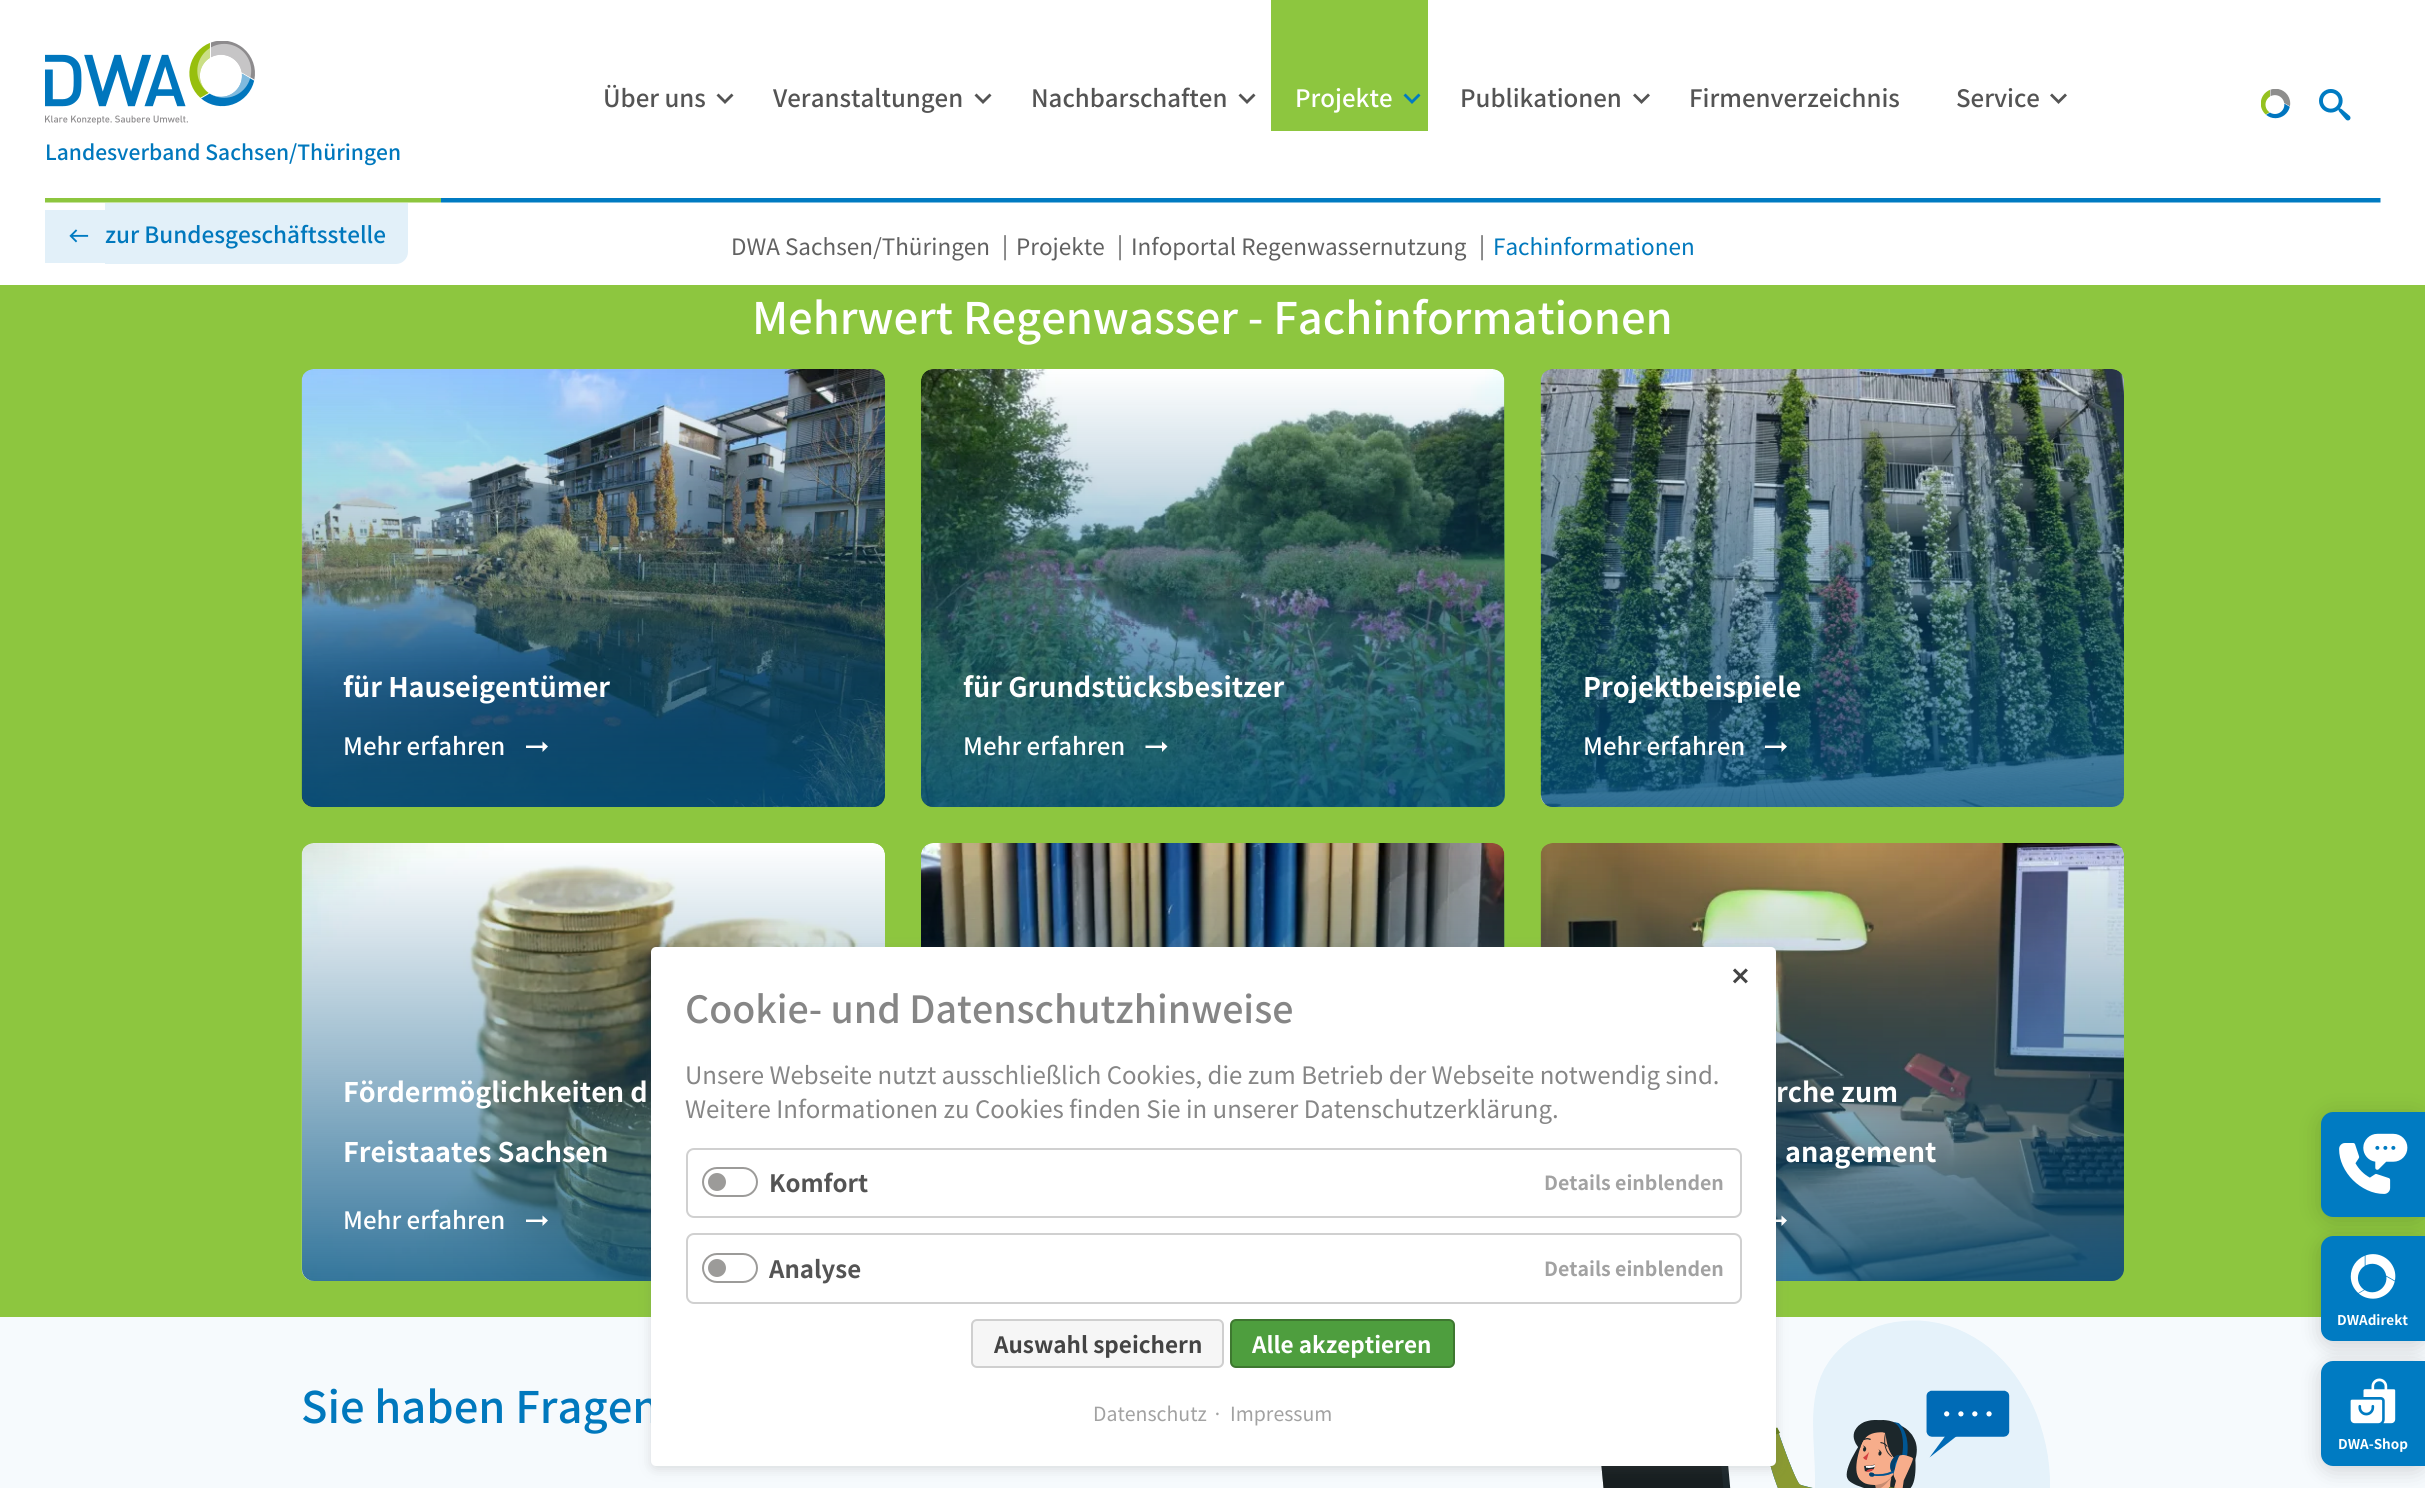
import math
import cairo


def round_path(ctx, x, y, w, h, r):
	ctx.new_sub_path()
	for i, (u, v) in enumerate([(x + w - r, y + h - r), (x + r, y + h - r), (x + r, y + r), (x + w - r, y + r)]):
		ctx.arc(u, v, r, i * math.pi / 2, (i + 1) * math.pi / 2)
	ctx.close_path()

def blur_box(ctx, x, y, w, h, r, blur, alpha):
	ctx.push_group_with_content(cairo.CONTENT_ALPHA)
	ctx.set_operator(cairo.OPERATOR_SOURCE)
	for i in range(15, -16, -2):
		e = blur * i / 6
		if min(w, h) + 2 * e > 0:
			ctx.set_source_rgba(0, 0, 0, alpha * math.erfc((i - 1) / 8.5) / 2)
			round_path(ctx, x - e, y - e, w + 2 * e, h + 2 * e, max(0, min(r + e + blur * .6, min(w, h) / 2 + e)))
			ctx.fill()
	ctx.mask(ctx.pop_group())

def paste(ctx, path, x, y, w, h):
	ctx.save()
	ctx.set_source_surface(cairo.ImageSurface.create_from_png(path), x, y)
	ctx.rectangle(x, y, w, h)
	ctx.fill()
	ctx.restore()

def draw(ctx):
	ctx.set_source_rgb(1, 1, 1)
	ctx.paint()
	ctx.select_font_face('Noto Sans JP Medium')
	ctx.set_font_size(24)
	ctx.set_source_rgb(0.329, 0.329, 0.329)
	ctx.move_to(603, 107)
	ctx.show_text('Über uns')
	ctx.new_path()
	ctx.move_to(718.5, 93.5)
	ctx.line_to(725, 100)
	ctx.line_to(731.5, 93.5)
	ctx.line_to(733.5, 95.5)
	ctx.line_to(725, 104)
	ctx.line_to(716.5, 95.5)
	ctx.close_path()
	ctx.fill()
	ctx.move_to(773, 107)
	ctx.show_text('Veranstaltungen')
	ctx.new_path()
	ctx.move_to(976.5, 93.5)
	ctx.line_to(983, 100)
	ctx.line_to(989.5, 93.5)
	ctx.line_to(991.5, 95.5)
	ctx.line_to(983, 104)
	ctx.line_to(974.5, 95.5)
	ctx.close_path()
	ctx.fill()
	ctx.move_to(1031, 107)
	ctx.show_text('Nachbarschaften')
	ctx.new_path()
	ctx.move_to(1240.5, 93.5)
	ctx.line_to(1247, 100)
	ctx.line_to(1253.5, 93.5)
	ctx.line_to(1255.5, 95.5)
	ctx.line_to(1247, 104)
	ctx.line_to(1238.5, 95.5)
	ctx.close_path()
	ctx.fill()
	ctx.set_source_rgb(0.553, 0.776, 0.247)
	ctx.rectangle(1271, 0, 157, 131)
	ctx.fill()
	ctx.set_source_rgb(1, 1, 1)
	ctx.move_to(1295, 107)
	ctx.show_text('Projekte')
	ctx.set_source_rgb(0, 0.482, 0.761)
	ctx.new_path()
	ctx.move_to(1405.5, 93.5)
	ctx.line_to(1412, 100)
	ctx.line_to(1418.5, 93.5)
	ctx.line_to(1420.5, 95.5)
	ctx.line_to(1412, 104)
	ctx.line_to(1403.5, 95.5)
	ctx.close_path()
	ctx.fill()
	ctx.set_source_rgb(0.329, 0.329, 0.329)
	ctx.move_to(1460, 107)
	ctx.show_text('Publikationen')
	paste(ctx, 'media/1.png', 1633, 93, 17, 11)
	ctx.move_to(1689, 107)
	ctx.show_text('Firmenverzeichnis')
	ctx.move_to(1956, 107)
	ctx.show_text('Service')
	paste(ctx, 'media/1.png', 2050, 93, 17, 11)
	paste(ctx, 'media/2.png', 2261, 89, 30, 30)
	paste(ctx, 'media/3.png', 2319, 89, 32, 32)
	paste(ctx, 'media/4.png', 45, 41, 210, 84)
	ctx.set_font_size(21)
	ctx.set_source_rgb(0, 0.471, 0.741)
	ctx.move_to(45, 160)
	ctx.show_text('Landesverband Sachsen/Thüringen')
	paste(ctx, 'media/5.png', 45, 198, 2336, 5)
	ctx.set_source_rgb(0.886, 0.941, 0.973)
	ctx.rectangle(45, 210, 60, 53)
	ctx.fill()
	ctx.new_path()
	ctx.move_to(105, 203)
	ctx.line_to(408, 203)
	ctx.line_to(408, 252)
	ctx.curve_to(408, 258.5, 402.5, 264, 396, 264)
	ctx.line_to(105, 264)
	ctx.close_path()
	ctx.fill()
	paste(ctx, 'media/6.png', 69, 229, 20, 14)
	ctx.set_font_size(22.5)
	ctx.set_source_rgb(0, 0.471, 0.741)
	ctx.move_to(105, 243)
	ctx.show_text('zur Bundesgeschäftsstelle')
	ctx.select_font_face('Noto Sans JP')
	ctx.set_source_rgb(0.38, 0.38, 0.38)
	for x, y, s in [
		(731, 255, 'DWA Sachsen/Thüringen'),
		(1002, 254, '|'),
		(1016, 255, 'Projekte'),
		(1117, 254, '|'),
		(1131, 255, 'Infoportal Regenwassernutzung'),
		(1479, 254, '|'),
	]:
		ctx.move_to(x, y)
		ctx.show_text(s)
	ctx.set_source_rgb(0, 0.471, 0.741)
	ctx.move_to(1493, 255)
	ctx.show_text('Fachinformationen')
	ctx.set_source_rgb(0.553, 0.776, 0.247)
	ctx.rectangle(0, 285, 2425, 1032)
	ctx.fill()
	ctx.select_font_face('Noto Sans JP Medium')
	ctx.set_font_size(43.5)
	ctx.set_source_rgb(1, 1, 1)
	ctx.move_to(752, 334)
	ctx.show_text('Mehrwert Regenwasser - Fachinformationen')
	paste(ctx, 'media/7.png', 301, 369, 584, 438)
	gradient = cairo.LinearGradient(593, 369, 593, 807)
	gradient.add_color_stop_rgba(0, 0.016, 0.329, 0.514, 0)
	gradient.add_color_stop_rgba(1, 0.016, 0.329, 0.514, 0.8)
	ctx.set_source(gradient)
	round_path(ctx, 302, 369, 583, 438, 12)
	ctx.fill()
	ctx.select_font_face('Noto Sans JP', cairo.FONT_SLANT_NORMAL, cairo.FONT_WEIGHT_BOLD)
	ctx.set_font_size(27)
	ctx.set_source_rgb(1, 1, 1)
	ctx.move_to(343, 697)
	ctx.show_text('für Hauseigentümer')
	ctx.select_font_face('Noto Sans JP Medium')
	ctx.set_font_size(24)
	ctx.move_to(343, 755)
	ctx.show_text('Mehr erfahren')
	ctx.new_path()
	ctx.move_to(542.5, 745.5)
	ctx.line_to(542.5, 741.5)
	ctx.line_to(548, 746.5)
	ctx.line_to(542.5, 752)
	ctx.line_to(542.5, 748)
	ctx.line_to(526, 748)
	ctx.line_to(526, 745.5)
	ctx.close_path()
	ctx.fill()
	paste(ctx, 'media/8.png', 921, 369, 584, 438)
	gradient = cairo.LinearGradient(1213, 369, 1213, 807)
	gradient.add_color_stop_rgba(0, 0.016, 0.329, 0.514, 0)
	gradient.add_color_stop_rgba(1, 0.016, 0.329, 0.514, 0.8)
	ctx.set_source(gradient)
	round_path(ctx, 921, 369, 584, 438, 12)
	ctx.fill()
	ctx.select_font_face('Noto Sans JP', cairo.FONT_SLANT_NORMAL, cairo.FONT_WEIGHT_BOLD)
	ctx.set_font_size(27)
	ctx.set_source_rgb(1, 1, 1)
	ctx.move_to(963, 697)
	ctx.show_text('für Grundstücksbesitzer')
	ctx.select_font_face('Noto Sans JP Medium')
	ctx.set_font_size(24)
	ctx.move_to(963, 755)
	ctx.show_text('Mehr erfahren')
	ctx.new_path()
	ctx.move_to(1162, 745.5)
	ctx.line_to(1162, 741.5)
	ctx.line_to(1167.5, 746.5)
	ctx.line_to(1162, 752)
	ctx.line_to(1162, 748)
	ctx.line_to(1145.5, 748)
	ctx.line_to(1145.5, 745.5)
	ctx.close_path()
	ctx.fill()
	paste(ctx, 'media/9.png', 1540, 369, 584, 438)
	gradient = cairo.LinearGradient(1832, 369, 1832, 807)
	gradient.add_color_stop_rgba(0, 0.016, 0.329, 0.514, 0)
	gradient.add_color_stop_rgba(1, 0.016, 0.329, 0.514, 0.8)
	ctx.set_source(gradient)
	round_path(ctx, 1541, 369, 583, 438, 12)
	ctx.fill()
	ctx.select_font_face('Noto Sans JP', cairo.FONT_SLANT_NORMAL, cairo.FONT_WEIGHT_BOLD)
	ctx.set_font_size(27)
	ctx.set_source_rgb(1, 1, 1)
	ctx.move_to(1583, 697)
	ctx.show_text('Projektbeispiele')
	ctx.select_font_face('Noto Sans JP Medium')
	ctx.set_font_size(24)
	ctx.move_to(1583, 755)
	ctx.show_text('Mehr erfahren')
	ctx.new_path()
	ctx.move_to(1781.5, 745.5)
	ctx.line_to(1781.5, 741.5)
	ctx.line_to(1787, 746.5)
	ctx.line_to(1781.5, 752)
	ctx.line_to(1781.5, 748)
	ctx.line_to(1765, 748)
	ctx.line_to(1765, 745.5)
	ctx.close_path()
	ctx.fill()
	paste(ctx, 'media/10.png', 921, 843, 584, 104)
	gradient = cairo.LinearGradient(1213, 843, 1213, 1281)
	gradient.add_color_stop_rgba(0, 0.016, 0.329, 0.514, 0)
	gradient.add_color_stop_rgba(1, 0.016, 0.329, 0.514, 0.8)
	ctx.set_source(gradient)
	ctx.rectangle(921, 855, 584, 92)
	ctx.fill()
	paste(ctx, 'media/11.png', 301, 843, 584, 438)
	gradient = cairo.LinearGradient(593, 843, 593, 1281)
	gradient.add_color_stop_rgba(0, 0.016, 0.329, 0.514, 0)
	gradient.add_color_stop_rgba(1, 0.016, 0.329, 0.514, 0.8)
	ctx.set_source(gradient)
	round_path(ctx, 302, 843, 583, 438, 12)
	ctx.fill()
	ctx.select_font_face('Noto Sans JP', cairo.FONT_SLANT_NORMAL, cairo.FONT_WEIGHT_BOLD)
	ctx.set_font_size(27)
	ctx.set_source_rgb(1, 1, 1)
	ctx.move_to(343, 1102)
	ctx.show_text('Fördermöglichkeiten d')
	ctx.move_to(343, 1162)
	ctx.show_text('Freistaates Sachsen')
	ctx.select_font_face('Noto Sans JP Medium')
	ctx.set_font_size(24)
	ctx.move_to(343, 1229)
	ctx.show_text('Mehr erfahren')
	ctx.new_path()
	ctx.move_to(542.5, 1219.5)
	ctx.line_to(542.5, 1215.5)
	ctx.line_to(548, 1220.5)
	ctx.line_to(542.5, 1226)
	ctx.line_to(542.5, 1222)
	ctx.line_to(526, 1222)
	ctx.line_to(526, 1219.5)
	ctx.close_path()
	ctx.fill()
	paste(ctx, 'media/12.png', 1540, 843, 584, 438)
	gradient = cairo.LinearGradient(1832, 843, 1832, 1281)
	gradient.add_color_stop_rgba(0, 0.016, 0.329, 0.514, 0)
	gradient.add_color_stop_rgba(1, 0.016, 0.329, 0.514, 0.8)
	ctx.set_source(gradient)
	round_path(ctx, 1541, 843, 583, 438, 12)
	ctx.fill()
	ctx.select_font_face('Noto Sans JP', cairo.FONT_SLANT_NORMAL, cairo.FONT_WEIGHT_BOLD)
	ctx.set_font_size(27)
	ctx.set_source_rgb(1, 1, 1)
	ctx.move_to(1776, 1102)
	ctx.show_text('rche zum')
	ctx.move_to(1785, 1162)
	ctx.show_text('anagement')
	ctx.new_path()
	ctx.move_to(1781.5, 1219.5)
	ctx.line_to(1781.5, 1215.5)
	ctx.line_to(1787, 1220.5)
	ctx.line_to(1781.5, 1226)
	ctx.line_to(1781.5, 1222)
	ctx.line_to(1765, 1222)
	ctx.line_to(1765, 1219.5)
	ctx.close_path()
	ctx.fill()
	ctx.set_source_rgb(0, 0, 0)
	blur_box(ctx, 2321, 1115, 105, 105, 12, 12, 0.15)
	ctx.set_source_rgb(0, 0.482, 0.761)
	ctx.new_path()
	ctx.move_to(2333, 1112)
	ctx.line_to(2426, 1112)
	ctx.line_to(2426, 1217)
	ctx.line_to(2333, 1217)
	ctx.curve_to(2326.5, 1217, 2321, 1211.5, 2321, 1205)
	ctx.line_to(2321, 1124)
	ctx.curve_to(2321, 1117.5, 2326.5, 1112, 2333, 1112)
	ctx.close_path()
	ctx.fill()
	paste(ctx, 'media/13.png', 2339, 1133, 69, 61)
	ctx.set_source_rgb(0.961, 0.98, 0.992)
	ctx.rectangle(0, 1317, 2425, 171)
	ctx.fill()
	ctx.select_font_face('Noto Sans JP Medium')
	ctx.set_font_size(43.5)
	ctx.set_source_rgb(0, 0.471, 0.741)
	ctx.move_to(301, 1423)
	ctx.show_text('Sie haben Fragen')
	paste(ctx, 'media/14.png', 1601, 1320, 449, 168)
	ctx.set_source_rgb(0, 0, 0)
	blur_box(ctx, 2321, 1241, 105, 105, 12, 11, 0.16)
	ctx.set_source_rgb(0, 0.482, 0.761)
	ctx.new_path()
	ctx.move_to(2333, 1236)
	ctx.line_to(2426, 1236)
	ctx.line_to(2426, 1341)
	ctx.line_to(2333, 1341)
	ctx.curve_to(2326.5, 1341, 2321, 1335.5, 2321, 1329)
	ctx.line_to(2321, 1248)
	ctx.curve_to(2321, 1241.5, 2326.5, 1236, 2333, 1236)
	ctx.close_path()
	ctx.fill()
	paste(ctx, 'media/15.png', 2350, 1254, 46, 45)
	ctx.select_font_face('Noto Sans JP', cairo.FONT_SLANT_NORMAL, cairo.FONT_WEIGHT_BOLD)
	ctx.set_font_size(13.5)
	ctx.set_source_rgb(1, 1, 1)
	ctx.move_to(2337, 1325)
	ctx.show_text('DWAdirekt')
	ctx.set_source_rgb(0, 0, 0)
	blur_box(ctx, 2321, 1365, 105, 105, 12, 11, 0.16)
	ctx.set_source_rgb(0, 0.482, 0.761)
	ctx.new_path()
	ctx.move_to(2333, 1361)
	ctx.line_to(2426, 1361)
	ctx.line_to(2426, 1466)
	ctx.line_to(2333, 1466)
	ctx.curve_to(2326.5, 1466, 2321, 1460.5, 2321, 1454)
	ctx.line_to(2321, 1373)
	ctx.curve_to(2321, 1366.5, 2326.5, 1361, 2333, 1361)
	ctx.close_path()
	ctx.fill()
	paste(ctx, 'media/16.png', 2350, 1378, 46, 46)
	ctx.set_source_rgb(1, 1, 1)
	ctx.move_to(2338, 1449)
	ctx.show_text('DWA-Shop')
	ctx.set_source_rgb(0.388, 0.388, 0.388)
	blur_box(ctx, 651, 950, 1125, 519, 5, 6, 0.2)
	ctx.set_source_rgb(1, 1, 1)
	round_path(ctx, 651, 947, 1125, 519, 5)
	ctx.fill()
	ctx.select_font_face('DejaVu Sans', cairo.FONT_SLANT_NORMAL, cairo.FONT_WEIGHT_BOLD)
	ctx.set_font_size(24)
	ctx.set_source_rgb(0.267, 0.267, 0.267)
	ctx.move_to(1730, 985)
	ctx.show_text('✕')
	ctx.select_font_face('Noto Sans JP Medium')
	ctx.set_font_size(37.5)
	ctx.set_source_rgb(0.525, 0.525, 0.525)
	ctx.move_to(685, 1023)
	ctx.show_text('Cookie- und Datenschutzhinweise')
	ctx.select_font_face('Noto Sans JP')
	ctx.set_font_size(24)
	ctx.move_to(685, 1084)
	ctx.show_text('Unsere Webseite nutzt ausschließlich Cookies, die zum Betrieb der Webseite notwendig sind.')
	ctx.move_to(685, 1118)
	ctx.show_text('Weitere Informationen zu Cookies finden Sie in unserer Datenschutzerklärung.')
	round_path(ctx, 687, 1149, 1054, 68, 7)
	ctx.set_source_rgb(0.816, 0.816, 0.816)
	ctx.stroke()
	round_path(ctx, 703, 1168, 54, 28, 14)
	ctx.set_source_rgb(0.612, 0.608, 0.6)
	ctx.stroke()
	ctx.select_font_face('Noto Sans JP', cairo.FONT_SLANT_NORMAL, cairo.FONT_WEIGHT_BOLD)
	ctx.set_source_rgb(0.329, 0.329, 0.329)
	ctx.move_to(769, 1192)
	ctx.show_text('Komfort')
	ctx.set_source_rgb(0.612, 0.608, 0.6)
	ctx.new_path()
	ctx.arc(717, 1182, 9, 0, 2 * math.pi)
	ctx.fill()
	ctx.set_font_size(19.5)
	ctx.set_source_rgb(0.635, 0.635, 0.635)
	ctx.move_to(1544, 1190)
	ctx.show_text('Details einblenden')
	round_path(ctx, 687, 1234, 1054, 69, 7)
	ctx.set_source_rgb(0.816, 0.816, 0.816)
	ctx.stroke()
	round_path(ctx, 703, 1254, 54, 28, 14)
	ctx.set_source_rgb(0.612, 0.608, 0.6)
	ctx.stroke()
	ctx.set_font_size(24)
	ctx.set_source_rgb(0.329, 0.329, 0.329)
	ctx.move_to(769, 1278)
	ctx.show_text('Analyse')
	ctx.set_source_rgb(0.612, 0.608, 0.6)
	ctx.new_path()
	ctx.arc(717, 1268, 9, 0, 2 * math.pi)
	ctx.fill()
	ctx.set_font_size(19.5)
	ctx.set_source_rgb(0.635, 0.635, 0.635)
	ctx.move_to(1544, 1276)
	ctx.show_text('Details einblenden')
	ctx.set_source_rgb(0.961, 0.961, 0.961)
	round_path(ctx, 972, 1320, 251, 47, 5)
	ctx.fill_preserve()
	ctx.set_source_rgb(0.812, 0.812, 0.812)
	ctx.stroke()
	ctx.set_font_size(22.5)
	ctx.set_source_rgb(0.267, 0.267, 0.267)
	ctx.move_to(994, 1353)
	ctx.show_text('Auswahl speichern')
	ctx.set_source_rgb(0.306, 0.62, 0.243)
	round_path(ctx, 1231, 1320, 223, 47, 5)
	ctx.fill_preserve()
	ctx.set_source_rgb(0.243, 0.471, 0.188)
	ctx.stroke()
	ctx.set_source_rgb(1, 1, 1)
	ctx.move_to(1252, 1353)
	ctx.show_text('Alle akzeptieren')
	ctx.select_font_face('Noto Sans JP')
	ctx.set_font_size(19.5)
	ctx.set_source_rgb(0.635, 0.635, 0.635)
	for x, y, s in [
		(1093, 1421, 'Datenschutz'),
		(1212, 1421, '·'),
		(1230, 1421, 'Impressum'),
	]:
		ctx.move_to(x, y)
		ctx.show_text(s)


surface = cairo.ImageSurface(cairo.FORMAT_RGB24, 2425, 1488)
ctx = cairo.Context(surface)
options = cairo.FontOptions()
options.set_hint_metrics(cairo.HINT_METRICS_OFF)
options.set_hint_style(cairo.HINT_STYLE_NONE)
ctx.set_font_options(options)
ctx.set_miter_limit(4)
draw(ctx)
surface.write_to_png('image.png')
